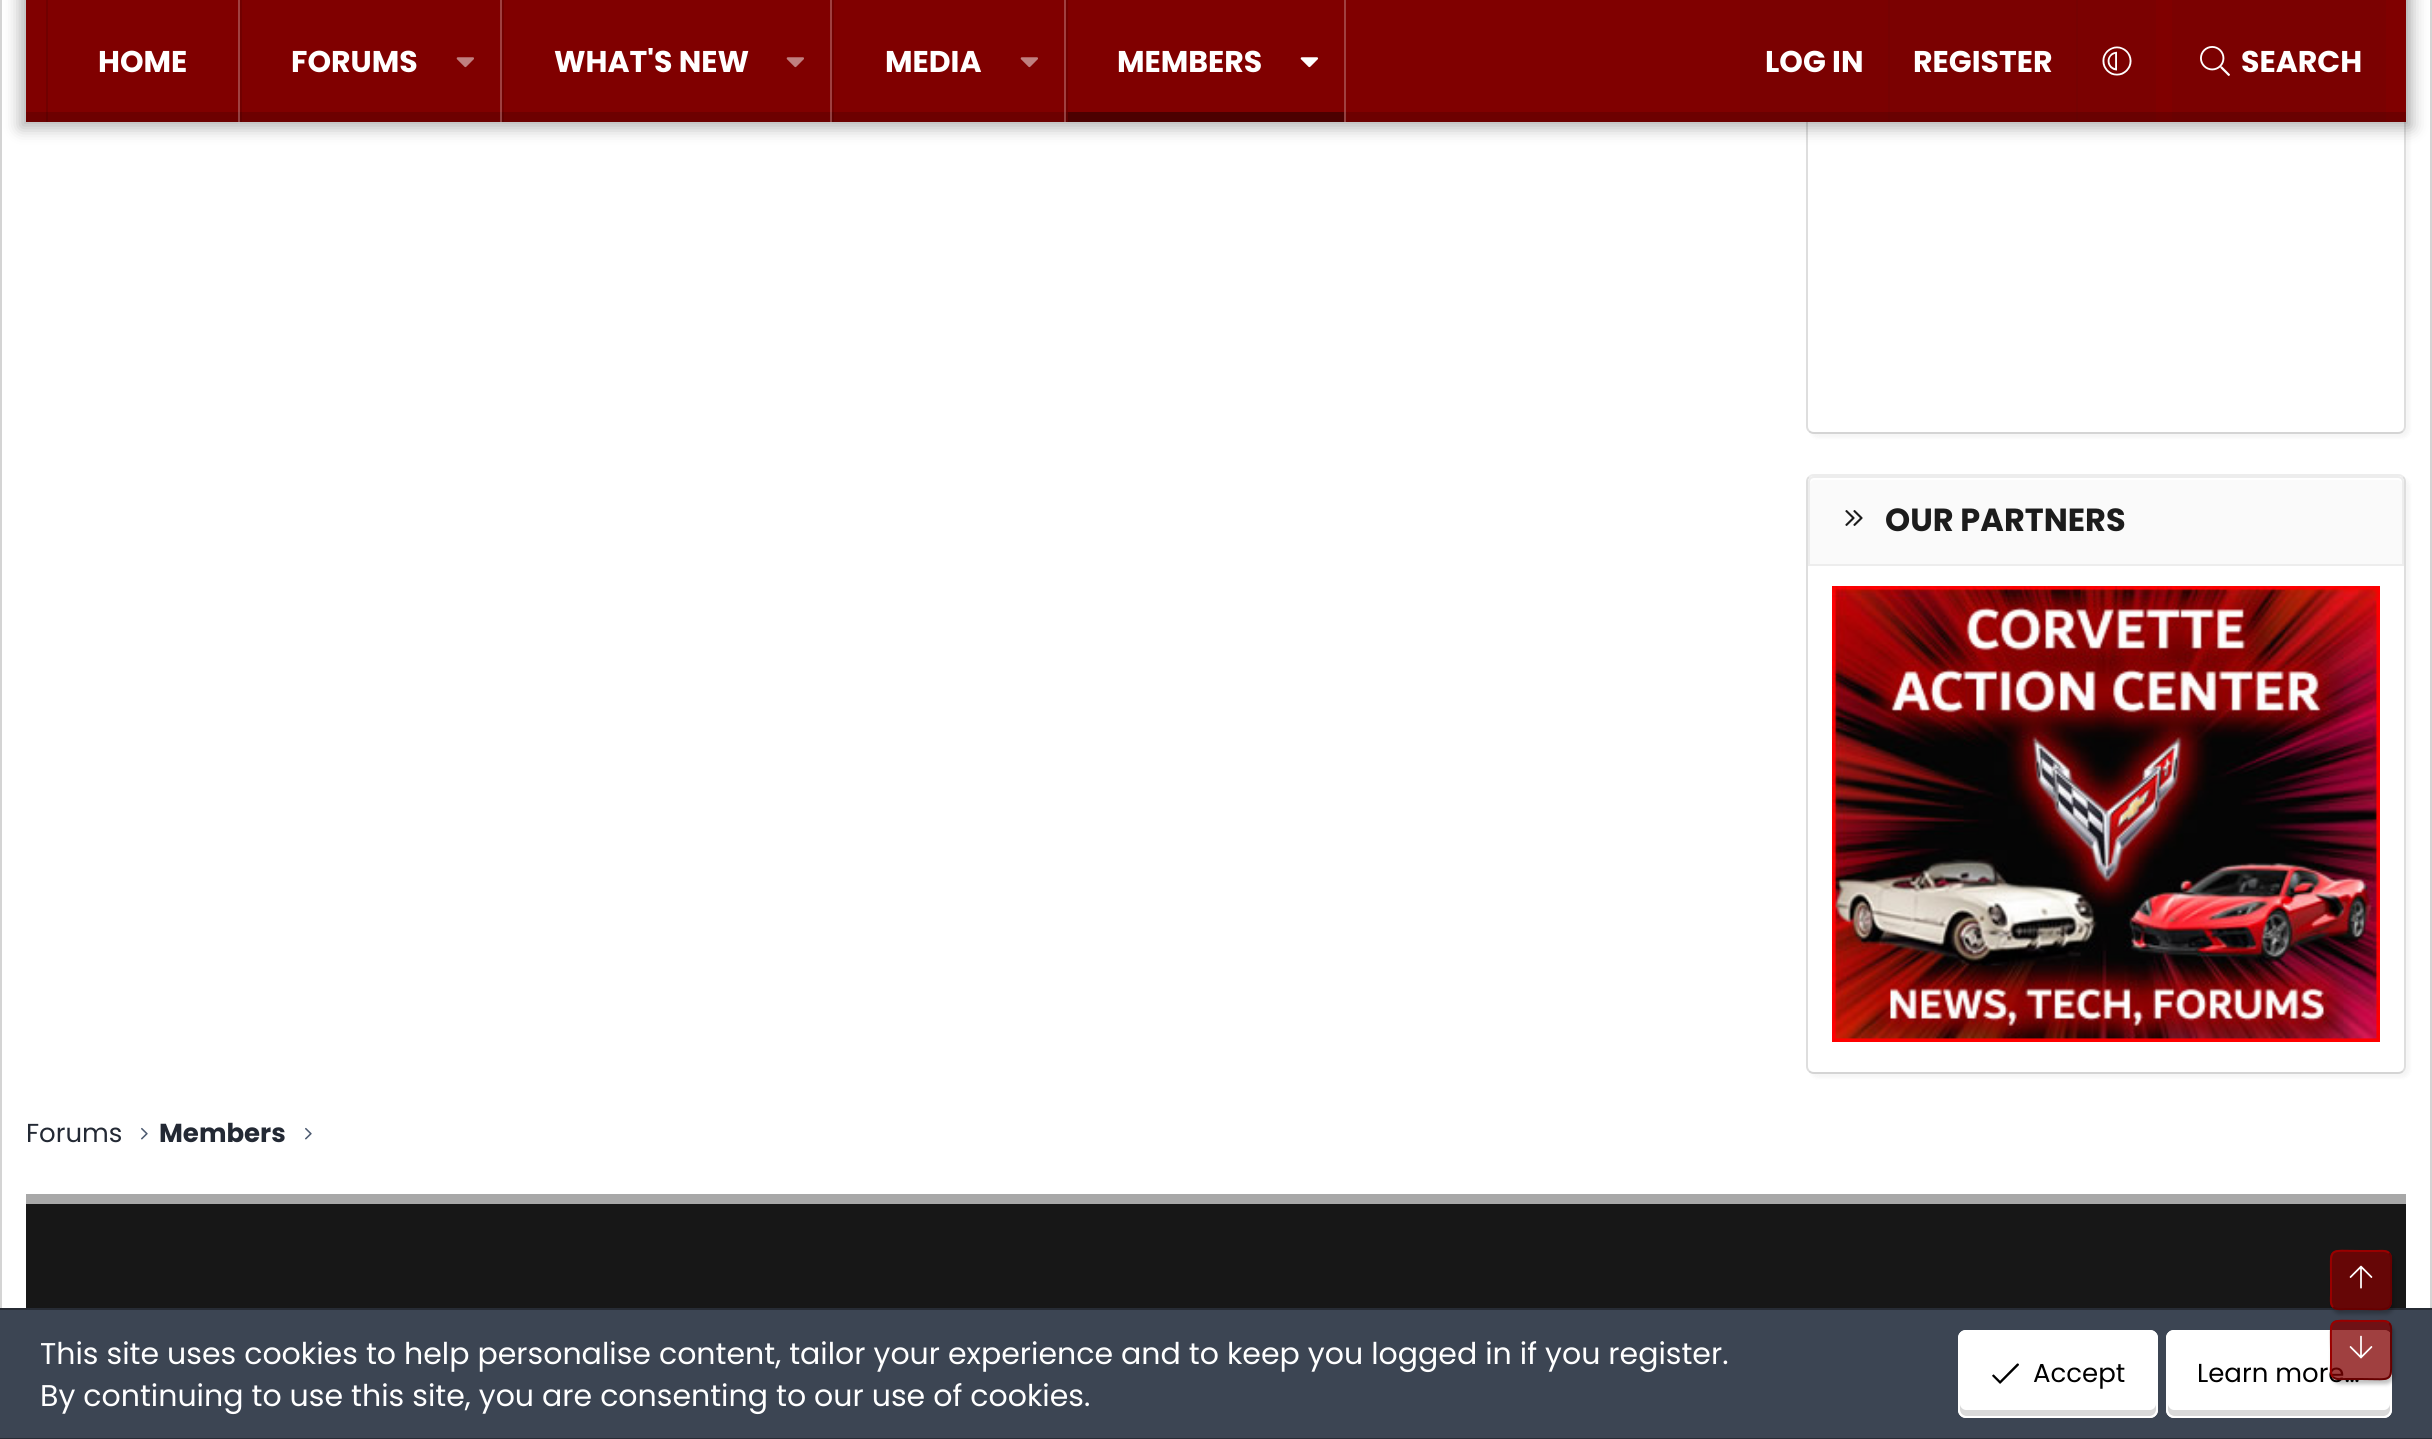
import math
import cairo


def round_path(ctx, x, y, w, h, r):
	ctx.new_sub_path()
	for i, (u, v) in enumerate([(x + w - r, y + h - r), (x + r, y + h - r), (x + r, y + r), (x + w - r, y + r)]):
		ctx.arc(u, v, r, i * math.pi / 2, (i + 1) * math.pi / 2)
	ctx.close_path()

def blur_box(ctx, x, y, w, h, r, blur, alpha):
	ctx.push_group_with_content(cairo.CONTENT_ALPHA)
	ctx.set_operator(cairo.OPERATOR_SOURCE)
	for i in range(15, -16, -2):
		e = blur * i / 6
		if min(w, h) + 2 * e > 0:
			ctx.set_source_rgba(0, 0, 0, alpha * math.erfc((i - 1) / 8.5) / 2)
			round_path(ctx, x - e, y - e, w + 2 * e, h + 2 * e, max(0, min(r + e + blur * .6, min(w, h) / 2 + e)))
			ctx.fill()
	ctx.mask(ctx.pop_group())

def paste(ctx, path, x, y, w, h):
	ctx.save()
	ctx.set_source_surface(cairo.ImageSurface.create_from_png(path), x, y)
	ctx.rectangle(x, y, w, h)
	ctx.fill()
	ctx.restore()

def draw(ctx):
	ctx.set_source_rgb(1, 1, 1)
	ctx.paint()
	ctx.rectangle(1, -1, 2430, 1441)
	ctx.set_source_rgb(0.831, 0.831, 0.831)
	ctx.stroke()
	ctx.set_source_rgb(0, 0, 0)
	blur_box(ctx, 1810, -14, 600, 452, 8, 2, 0.04)
	ctx.set_source_rgb(1, 1, 1)
	round_path(ctx, 1806, -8, 600, 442, 8)
	ctx.fill()
	ctx.new_path()
	ctx.move_to(2403, -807)
	ctx.curve_to(2404.5, -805.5, 2405, -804, 2405, -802)
	ctx.line_to(2405, 426)
	ctx.curve_to(2405, 428, 2404.5, 429.5, 2403, 431)
	ctx.set_source_rgb(0.871, 0.871, 0.871)
	ctx.stroke()
	ctx.new_path()
	ctx.move_to(2403, 431)
	ctx.curve_to(2401.5, 432.5, 2400, 433, 2398, 433)
	ctx.line_to(1814, 433)
	ctx.curve_to(1812, 433, 1810.5, 432.5, 1809, 431)
	ctx.set_source_rgb(0.831, 0.831, 0.831)
	ctx.stroke()
	ctx.new_path()
	ctx.move_to(1809, 431)
	ctx.curve_to(1807.5, 429.5, 1807, 428, 1807, 426)
	ctx.line_to(1807, -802)
	ctx.curve_to(1807, -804, 1807.5, -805.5, 1809, -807)
	ctx.set_source_rgb(0.871, 0.871, 0.871)
	ctx.stroke()
	ctx.set_source_rgb(0, 0, 0)
	blur_box(ctx, 20, -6, 2392, 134, 0, 8, 0.3)
	ctx.set_source_rgb(0.502, 0, 0)
	ctx.rectangle(26, 0, 2380, 112)
	ctx.fill()
	ctx.set_source_rgb(0.427, 0, 0)
	ctx.rectangle(26, 112, 2380, 10)
	ctx.fill()
	ctx.set_source_rgba(1, 1, 1, 0.25)
	ctx.rectangle(238, 0, 2, 122)
	ctx.fill()
	ctx.set_source_rgba(0, 0, 0, 0.12)
	ctx.rectangle(46, 0, 2, 122)
	ctx.fill()
	ctx.select_font_face('Poppins', cairo.FONT_SLANT_NORMAL, cairo.FONT_WEIGHT_BOLD)
	ctx.set_font_size(30)
	ctx.set_source_rgb(1, 1, 1)
	ctx.move_to(98, 72)
	ctx.show_text('HOME')
	ctx.set_source_rgba(1, 1, 1, 0.25)
	ctx.rectangle(500, 0, 2, 122)
	ctx.fill()
	ctx.set_source_rgba(0, 0, 0, 0.12)
	ctx.rectangle(240, 0, 2, 122)
	ctx.fill()
	ctx.set_source_rgb(1, 1, 1)
	ctx.move_to(291, 72)
	ctx.show_text('FORUMS')
	paste(ctx, 'media/1.png', 456, 57, 18, 11)
	ctx.set_source_rgba(1, 1, 1, 0.25)
	ctx.rectangle(830, 0, 2, 122)
	ctx.fill()
	ctx.set_source_rgba(0, 0, 0, 0.12)
	ctx.rectangle(502, 0, 2, 122)
	ctx.fill()
	ctx.set_source_rgb(1, 1, 1)
	ctx.move_to(554, 72)
	ctx.show_text('WHAT\'S NEW')
	paste(ctx, 'media/1.png', 786, 57, 18, 11)
	ctx.set_source_rgba(1, 1, 1, 0.25)
	ctx.rectangle(1064, 0, 2, 122)
	ctx.fill()
	ctx.set_source_rgba(0, 0, 0, 0.12)
	ctx.rectangle(832, 0, 2, 122)
	ctx.fill()
	ctx.set_source_rgb(1, 1, 1)
	ctx.move_to(885, 72)
	ctx.show_text('MEDIA')
	paste(ctx, 'media/1.png', 1020, 57, 18, 11)
	ctx.set_source_rgba(1, 1, 1, 0.25)
	ctx.rectangle(1344, 0, 2, 122)
	ctx.fill()
	ctx.set_source_rgba(0, 0, 0, 0.12)
	ctx.rectangle(1066, 0, 2, 122)
	ctx.fill()
	ctx.set_source_rgb(0.298, 0, 0)
	ctx.rectangle(1068, 112, 276, 10)
	ctx.fill()
	ctx.set_source_rgb(1, 1, 1)
	ctx.move_to(1117, 72)
	ctx.show_text('MEMBERS')
	paste(ctx, 'media/2.png', 1300, 57, 19, 11)
	ctx.set_source_rgba(0.11, 0.11, 0.11, 0.05)
	ctx.rectangle(1740, 0, 416, 122)
	ctx.fill()
	ctx.set_source_rgb(1, 1, 1)
	ctx.move_to(1765, 72)
	ctx.show_text('LOG IN')
	ctx.set_source_rgba(0.11, 0.11, 0.11, 0.05)
	ctx.rectangle(1888, 0, 2, 122)
	ctx.fill()
	ctx.set_source_rgb(1, 1, 1)
	ctx.move_to(1913, 72)
	ctx.show_text('REGISTER')
	ctx.set_source_rgba(0.11, 0.11, 0.11, 0.05)
	ctx.rectangle(2076, 0, 2, 122)
	ctx.fill()
	paste(ctx, 'media/3.png', 2102, 46, 30, 30)
	ctx.rectangle(2172, 0, 214, 122)
	ctx.fill()
	paste(ctx, 'media/4.png', 2200, 46, 30, 30)
	ctx.set_source_rgb(1, 1, 1)
	ctx.move_to(2241, 72)
	ctx.show_text('SEARCH')
	ctx.set_source_rgb(0, 0, 0)
	blur_box(ctx, 1810, 478, 600, 600, 8, 2, 0.04)
	ctx.set_source_rgb(1, 1, 1)
	round_path(ctx, 1806, 474, 600, 600, 8)
	ctx.fill()
	ctx.new_path()
	ctx.move_to(1809, 477)
	ctx.curve_to(1810.5, 475.5, 1812, 475, 1814, 475)
	ctx.line_to(2398, 475)
	ctx.curve_to(2400, 475, 2401.5, 475.5, 2403, 477)
	ctx.set_source_rgb(0.929, 0.929, 0.929)
	ctx.stroke()
	ctx.new_path()
	ctx.move_to(2403, 477)
	ctx.curve_to(2404.5, 478.5, 2405, 480, 2405, 482)
	ctx.line_to(2405, 1066)
	ctx.curve_to(2405, 1068, 2404.5, 1069.5, 2403, 1071)
	ctx.set_source_rgb(0.871, 0.871, 0.871)
	ctx.stroke()
	ctx.new_path()
	ctx.move_to(2403, 1071)
	ctx.curve_to(2401.5, 1072.5, 2400, 1073, 2398, 1073)
	ctx.line_to(1814, 1073)
	ctx.curve_to(1812, 1073, 1810.5, 1072.5, 1809, 1071)
	ctx.set_source_rgb(0.831, 0.831, 0.831)
	ctx.stroke()
	ctx.new_path()
	ctx.move_to(1809, 1071)
	ctx.curve_to(1807.5, 1069.5, 1807, 1068, 1807, 1066)
	ctx.line_to(1807, 482)
	ctx.curve_to(1807, 480, 1807.5, 478.5, 1809, 477)
	ctx.set_source_rgb(0.871, 0.871, 0.871)
	ctx.stroke()
	ctx.set_source_rgb(0.98, 0.98, 0.98)
	ctx.new_path()
	ctx.move_to(1814, 476)
	ctx.line_to(2398, 476)
	ctx.curve_to(2401.5, 476, 2404, 478.5, 2404, 482)
	ctx.line_to(2404, 566)
	ctx.line_to(1808, 566)
	ctx.line_to(1808, 482)
	ctx.curve_to(1808, 478.5, 1810.5, 476, 1814, 476)
	ctx.close_path()
	ctx.fill()
	ctx.set_source_rgb(1, 1, 1)
	ctx.new_path()
	ctx.move_to(1814, 480)
	ctx.line_to(2398, 480)
	ctx.curve_to(2400, 480, 2402, 482, 2402, 484)
	ctx.line_to(2402, 482)
	ctx.curve_to(2402, 480, 2400, 478, 2398, 478)
	ctx.line_to(1814, 478)
	ctx.curve_to(1812, 478, 1810, 480, 1810, 482)
	ctx.line_to(1810, 484)
	ctx.curve_to(1810, 482, 1812, 480, 1814, 480)
	ctx.close_path()
	ctx.fill()
	ctx.new_path()
	ctx.move_to(1814, 477)
	ctx.line_to(2398, 477)
	ctx.curve_to(2401, 477, 2403, 479, 2403, 482)
	ctx.line_to(2403, 565)
	ctx.line_to(1809, 565)
	ctx.line_to(1809, 482)
	ctx.curve_to(1809, 479, 1811, 477, 1814, 477)
	ctx.close_path()
	ctx.set_source_rgb(0.929, 0.929, 0.929)
	ctx.stroke()
	paste(ctx, 'media/5.png', 1845, 510, 18, 16)
	ctx.set_font_size(32)
	ctx.set_source_rgb(0.11, 0.11, 0.11)
	ctx.move_to(1885, 531)
	ctx.show_text('OUR PARTNERS')
	paste(ctx, 'media/6.png', 1832, 586, 548, 456)
	ctx.select_font_face('Poppins')
	ctx.set_font_size(26)
	ctx.set_source_rgb(0.137, 0.161, 0.204)
	ctx.move_to(26, 1142)
	ctx.show_text('Forums')
	paste(ctx, 'media/7.png', 141, 1127, 7, 13)
	ctx.select_font_face('Poppins', cairo.FONT_SLANT_NORMAL, cairo.FONT_WEIGHT_BOLD)
	ctx.move_to(159, 1142)
	ctx.show_text('Members')
	paste(ctx, 'media/7.png', 305, 1127, 7, 13)
	ctx.set_source_rgb(0.09, 0.09, 0.09)
	ctx.rectangle(26, 1204, 2380, 104)
	ctx.fill()
	ctx.set_source_rgb(0.659, 0.659, 0.659)
	ctx.rectangle(26, 1194, 2380, 10)
	ctx.fill()
	ctx.set_source_rgb(0.235, 0.271, 0.325)
	ctx.rectangle(0, 1310, 2432, 128)
	ctx.fill()
	ctx.set_source_rgb(0.153, 0.173, 0.208)
	ctx.rectangle(0, 1308, 2432, 2)
	ctx.rectangle(0, 1438, 2432, 1)
	ctx.fill()
	ctx.select_font_face('Poppins')
	ctx.set_font_size(30)
	ctx.set_source_rgb(1, 1, 1)
	ctx.move_to(40, 1364)
	ctx.show_text('This site uses cookies to help personalise content, tailor your experience and to keep you logged in if you register.')
	ctx.move_to(40, 1406)
	ctx.show_text('By continuing to use this site, you are consenting to our use of cookies.')
	round_path(ctx, 1958, 1330, 200, 88, 8)
	ctx.fill()
	ctx.set_source_rgb(0.851, 0.851, 0.851)
	ctx.new_path()
	ctx.move_to(1960, 1404)
	ctx.line_to(1960, 1410)
	ctx.curve_to(1960, 1413, 1963, 1416, 1966, 1416)
	ctx.line_to(2150, 1416)
	ctx.curve_to(2153, 1416, 2156, 1413, 2156, 1410)
	ctx.line_to(2156, 1404)
	ctx.curve_to(2156, 1407, 2153, 1410, 2150, 1410)
	ctx.line_to(1966, 1410)
	ctx.curve_to(1963, 1410, 1960, 1407, 1960, 1404)
	ctx.close_path()
	ctx.fill()
	round_path(ctx, 1959, 1331, 198, 86, 7)
	ctx.set_source_rgb(1, 1, 1)
	ctx.stroke()
	paste(ctx, 'media/8.png', 1992, 1363, 27, 21)
	ctx.set_font_size(26)
	ctx.set_source_rgb(0, 0, 0)
	ctx.move_to(2033, 1382)
	ctx.show_text('Accept')
	ctx.set_source_rgb(1, 1, 1)
	round_path(ctx, 2166, 1330, 226, 88, 8)
	ctx.fill()
	ctx.set_source_rgb(0.851, 0.851, 0.851)
	ctx.new_path()
	ctx.move_to(2168, 1404)
	ctx.line_to(2168, 1410)
	ctx.curve_to(2168, 1413, 2171, 1416, 2174, 1416)
	ctx.line_to(2384, 1416)
	ctx.curve_to(2387, 1416, 2390, 1413, 2390, 1410)
	ctx.line_to(2390, 1404)
	ctx.curve_to(2390, 1407, 2387, 1410, 2384, 1410)
	ctx.line_to(2174, 1410)
	ctx.curve_to(2171, 1410, 2168, 1407, 2168, 1404)
	ctx.close_path()
	ctx.fill()
	round_path(ctx, 2167, 1331, 224, 86, 7)
	ctx.set_source_rgb(1, 1, 1)
	ctx.stroke()
	ctx.set_source_rgb(0, 0, 0)
	ctx.move_to(2197, 1382)
	ctx.show_text('Learn more…')
	ctx.save()
	ctx.set_fill_rule(cairo.FILL_RULE_EVEN_ODD)
	ctx.new_path()
	ctx.move_to(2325, 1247)
	ctx.line_to(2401, 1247)
	ctx.line_to(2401, 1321)
	ctx.line_to(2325, 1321)
	ctx.close_path()
	ctx.move_to(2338, 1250)
	ctx.line_to(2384, 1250)
	ctx.curve_to(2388.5, 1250, 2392, 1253.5, 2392, 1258)
	ctx.line_to(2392, 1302)
	ctx.curve_to(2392, 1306.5, 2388.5, 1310, 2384, 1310)
	ctx.line_to(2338, 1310)
	ctx.curve_to(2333.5, 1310, 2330, 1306.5, 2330, 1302)
	ctx.line_to(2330, 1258)
	ctx.curve_to(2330, 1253.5, 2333.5, 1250, 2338, 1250)
	ctx.close_path()
	ctx.clip()
	ctx.set_source_rgb(0, 0, 0)
	blur_box(ctx, 2332, 1254, 62, 60, 8, 2, 0.25)
	ctx.restore()
	ctx.set_source_rgba(0.502, 0, 0, 0.75)
	round_path(ctx, 2330, 1250, 62, 60, 8)
	ctx.fill()
	ctx.new_path()
	ctx.move_to(2389, 1253)
	ctx.curve_to(2392, 1256, 2391, 1261.5, 2391, 1265.5)
	ctx.line_to(2391, 1280)
	ctx.curve_to(2391, 1314, 2395, 1309, 2361, 1309)
	ctx.line_to(2345.5, 1309)
	ctx.curve_to(2342, 1309, 2336, 1310, 2333, 1307)
	ctx.set_source_rgb(0.4, 0, 0)
	ctx.stroke()
	ctx.new_path()
	ctx.move_to(2333, 1307)
	ctx.curve_to(2330, 1304, 2331, 1298.5, 2331, 1294.5)
	ctx.line_to(2331, 1280)
	ctx.curve_to(2331, 1246, 2327, 1251, 2361, 1251)
	ctx.line_to(2376.5, 1251)
	ctx.curve_to(2380, 1251, 2386, 1250, 2389, 1253)
	ctx.set_source_rgb(0.6, 0, 0)
	ctx.stroke()
	paste(ctx, 'media/9.png', 2349, 1265, 24, 24)
	ctx.save()
	ctx.set_fill_rule(cairo.FILL_RULE_EVEN_ODD)
	ctx.new_path()
	ctx.move_to(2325, 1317)
	ctx.line_to(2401, 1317)
	ctx.line_to(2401, 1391)
	ctx.line_to(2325, 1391)
	ctx.close_path()
	ctx.move_to(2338, 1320)
	ctx.line_to(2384, 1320)
	ctx.curve_to(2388.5, 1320, 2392, 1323.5, 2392, 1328)
	ctx.line_to(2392, 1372)
	ctx.curve_to(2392, 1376.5, 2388.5, 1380, 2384, 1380)
	ctx.line_to(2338, 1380)
	ctx.curve_to(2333.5, 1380, 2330, 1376.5, 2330, 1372)
	ctx.line_to(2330, 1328)
	ctx.curve_to(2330, 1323.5, 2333.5, 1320, 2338, 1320)
	ctx.close_path()
	ctx.clip()
	ctx.set_source_rgb(0, 0, 0)
	blur_box(ctx, 2332, 1324, 62, 60, 8, 2, 0.25)
	ctx.restore()
	ctx.set_source_rgba(0.502, 0, 0, 0.75)
	round_path(ctx, 2330, 1320, 62, 60, 8)
	ctx.fill()
	ctx.new_path()
	ctx.move_to(2389, 1323)
	ctx.curve_to(2392, 1326, 2391, 1331.5, 2391, 1335.5)
	ctx.line_to(2391, 1350)
	ctx.curve_to(2391, 1384, 2395, 1379, 2361, 1379)
	ctx.line_to(2345.5, 1379)
	ctx.curve_to(2342, 1379, 2336, 1380, 2333, 1377)
	ctx.set_source_rgb(0.4, 0, 0)
	ctx.stroke()
	ctx.new_path()
	ctx.move_to(2333, 1377)
	ctx.curve_to(2330, 1374, 2331, 1368.5, 2331, 1364.5)
	ctx.line_to(2331, 1350)
	ctx.curve_to(2331, 1316, 2327, 1321, 2361, 1321)
	ctx.line_to(2376.5, 1321)
	ctx.curve_to(2380, 1321, 2386, 1320, 2389, 1323)
	ctx.set_source_rgb(0.6, 0, 0)
	ctx.stroke()
	paste(ctx, 'media/10.png', 2349, 1335, 24, 24)


surface = cairo.ImageSurface(cairo.FORMAT_RGB24, 2432, 1439)
ctx = cairo.Context(surface)
options = cairo.FontOptions()
options.set_hint_metrics(cairo.HINT_METRICS_OFF)
options.set_hint_style(cairo.HINT_STYLE_NONE)
ctx.set_font_options(options)
ctx.set_miter_limit(4)
draw(ctx)
surface.write_to_png('image.png')
